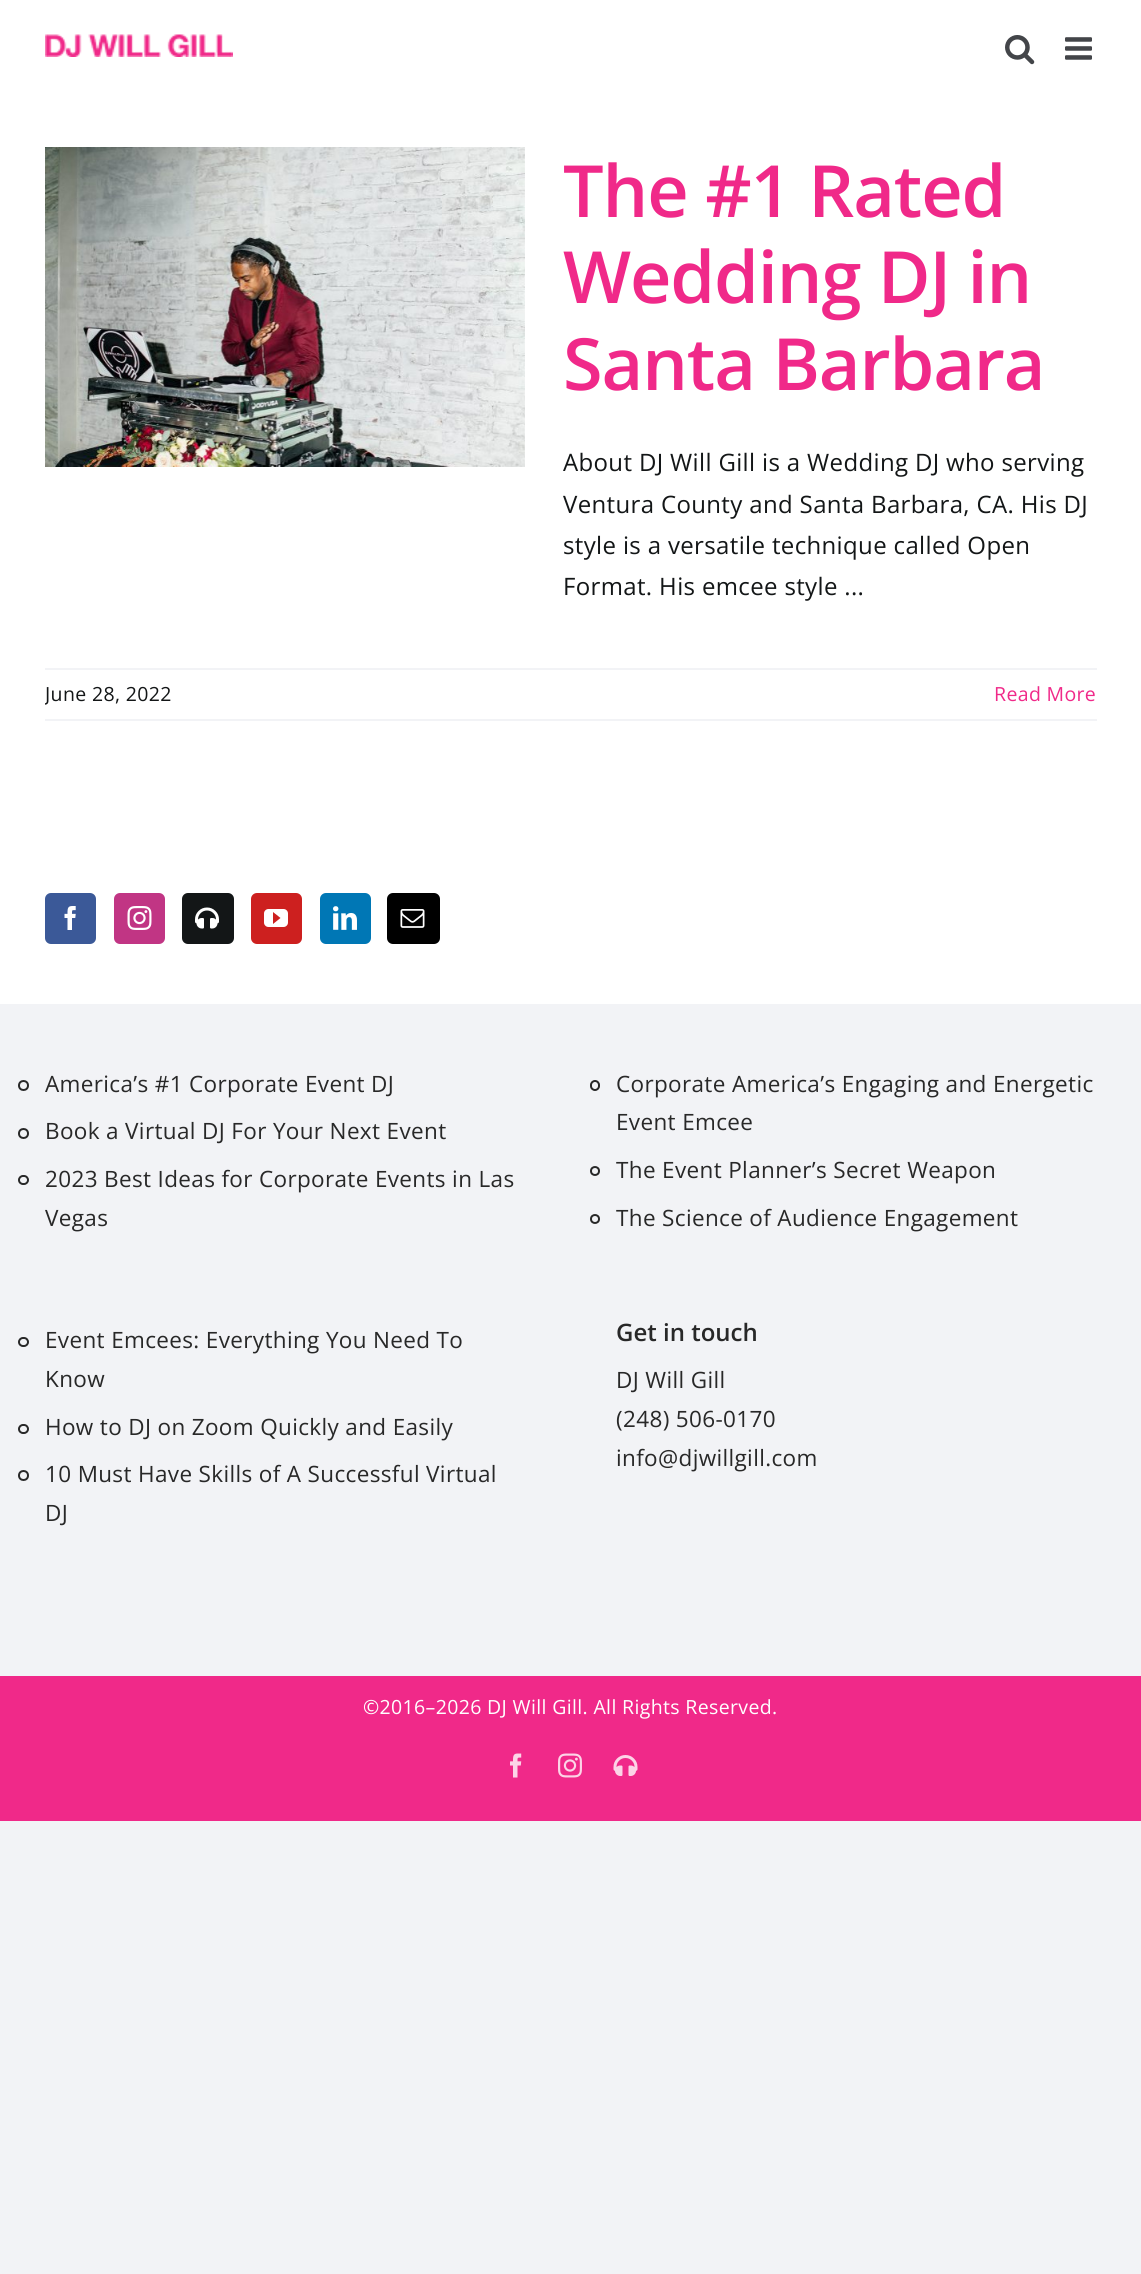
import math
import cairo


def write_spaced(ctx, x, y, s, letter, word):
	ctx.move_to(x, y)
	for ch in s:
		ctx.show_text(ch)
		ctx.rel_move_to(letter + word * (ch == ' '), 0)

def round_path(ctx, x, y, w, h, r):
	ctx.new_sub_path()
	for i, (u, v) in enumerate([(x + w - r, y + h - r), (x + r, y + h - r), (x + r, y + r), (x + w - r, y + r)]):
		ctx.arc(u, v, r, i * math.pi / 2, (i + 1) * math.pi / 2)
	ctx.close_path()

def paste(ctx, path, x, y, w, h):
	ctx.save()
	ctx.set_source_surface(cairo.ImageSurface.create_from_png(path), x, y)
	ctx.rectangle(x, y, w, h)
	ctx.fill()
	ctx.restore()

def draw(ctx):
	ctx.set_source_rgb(0.949, 0.953, 0.961)
	ctx.paint()
	ctx.set_source_rgb(1, 1, 1)
	ctx.rectangle(0, 0, 1141, 1004)
	ctx.fill()
	paste(ctx, 'media/1.png', 45, 34, 188, 23)
	paste(ctx, 'media/2.png', 1005, 35, 30, 30)
	paste(ctx, 'media/3.png', 1065, 37, 27, 23)
	paste(ctx, 'media/4.png', 45, 147, 480, 320)
	ctx.select_font_face('Open Sans SemiBold')
	ctx.set_font_size(72)
	ctx.set_source_rgb(0.941, 0.161, 0.537)
	for x, y, s in [
		(563, 217, 'The #1 Rated'),
		(563, 303, 'Wedding DJ in'),
		(563, 390, 'Santa Barbara'),
	]:
		write_spaced(ctx, x, y, s, -1.1, 0)
	ctx.select_font_face('Open Sans')
	ctx.set_font_size(24)
	ctx.set_source_rgb(0.078, 0.086, 0.09)
	for x, y, s in [
		(563, 471, 'About DJ Will Gill is a Wedding DJ who serving'),
		(563, 513, 'Ventura County and Santa Barbara, CA. His DJ'),
		(563, 554, 'style is a versatile technique called Open'),
		(563, 595, 'Format. His emcee style ...'),
	]:
		write_spaced(ctx, x, y, s, 0.35, 0)
	ctx.set_source_rgb(0.949, 0.953, 0.961)
	ctx.rectangle(45, 668, 1052, 2)
	ctx.fill()
	ctx.rectangle(45, 719, 1052, 2)
	ctx.fill()
	ctx.save()
	ctx.rectangle(45, 669, 1052, 50)
	ctx.clip()
	ctx.set_font_size(19.5)
	ctx.set_source_rgb(0.078, 0.086, 0.09)
	write_spaced(ctx, 45, 701, 'June 28, 2022', 0.35, 0)
	ctx.restore()
	ctx.set_font_size(19.5)
	ctx.set_source_rgb(0.941, 0.161, 0.537)
	write_spaced(ctx, 994, 701, 'Read More', 0.35, 0)
	ctx.set_source_rgb(0.231, 0.349, 0.596)
	round_path(ctx, 46, 894, 49, 49, 5)
	ctx.fill_preserve()
	ctx.stroke()
	paste(ctx, 'media/5.png', 64, 906, 12, 24)
	ctx.set_source_rgb(0.757, 0.208, 0.518)
	round_path(ctx, 115, 894, 49, 49, 5)
	ctx.fill_preserve()
	ctx.stroke()
	paste(ctx, 'media/6.png', 127, 906, 25, 24)
	ctx.set_source_rgb(0.078, 0.086, 0.09)
	round_path(ctx, 183, 894, 50, 49, 5)
	ctx.fill_preserve()
	ctx.stroke()
	paste(ctx, 'media/7.png', 195, 907, 24, 22)
	ctx.set_source_rgb(0.804, 0.125, 0.122)
	round_path(ctx, 252, 894, 49, 49, 5)
	ctx.fill_preserve()
	ctx.stroke()
	paste(ctx, 'media/8.png', 264, 909, 24, 18)
	ctx.set_source_rgb(0, 0.467, 0.71)
	round_path(ctx, 321, 894, 49, 49, 5)
	ctx.fill_preserve()
	ctx.stroke()
	paste(ctx, 'media/9.png', 333, 906, 24, 24)
	ctx.set_source_rgb(0, 0, 0)
	round_path(ctx, 388, 894, 51, 49, 5)
	ctx.fill_preserve()
	ctx.stroke()
	paste(ctx, 'media/10.png', 400, 909, 25, 19)
	ctx.arc(23.5, 1085.5, 4.5, 0, 2 * math.pi)
	ctx.set_source_rgb(0.157, 0.157, 0.157)
	ctx.stroke()
	ctx.set_font_size(22.5)
	write_spaced(ctx, 45, 1092, 'America’s #1 Corporate Event DJ', 0.35, 0)
	ctx.new_path()
	ctx.arc(23.5, 1133.5, 4.5, 0, 2 * math.pi)
	ctx.stroke()
	write_spaced(ctx, 45, 1139, 'Book a Virtual DJ For Your Next Event', 0.35, 0)
	round_path(ctx, 19, 1176, 9, 8, 4)
	ctx.stroke()
	write_spaced(ctx, 45, 1187, '2023 Best Ideas for Corporate Events in Las', 0.35, 0)
	write_spaced(ctx, 45, 1226, 'Vegas', 0.35, 0)
	round_path(ctx, 591, 1081, 8, 9, 4)
	ctx.stroke()
	write_spaced(ctx, 616, 1092, 'Corporate America’s Engaging and Energetic', 0.35, 0)
	write_spaced(ctx, 616, 1130, 'Event Emcee', 0.35, 0)
	ctx.new_path()
	ctx.arc(595, 1171, 4, 0, 2 * math.pi)
	ctx.stroke()
	write_spaced(ctx, 616, 1178, 'The Event Planner’s Secret Weapon', 0.35, 0)
	ctx.new_path()
	ctx.arc(595, 1219, 4, 0, 2 * math.pi)
	ctx.stroke()
	write_spaced(ctx, 616, 1226, 'The Science of Audience Engagement', 0.35, 0)
	round_path(ctx, 19, 1338, 9, 8, 4)
	ctx.stroke()
	write_spaced(ctx, 45, 1348, 'Event Emcees: Everything You Need To', 0.35, 0)
	write_spaced(ctx, 45, 1387, 'Know', 0.35, 0)
	round_path(ctx, 19, 1425, 9, 8, 4)
	ctx.stroke()
	write_spaced(ctx, 45, 1435, 'How to DJ on Zoom Quickly and Easily', 0.35, 0)
	ctx.new_path()
	ctx.arc(23.5, 1475.5, 4.5, 0, 2 * math.pi)
	ctx.stroke()
	write_spaced(ctx, 45, 1482, '10 Must Have Skills of A Successful Virtual', 0.35, 0)
	write_spaced(ctx, 45, 1521, 'DJ', 0.35, 0)
	ctx.select_font_face('Open Sans SemiBold')
	ctx.set_font_size(24)
	ctx.move_to(616, 1341)
	ctx.show_text('Get in touch')
	ctx.select_font_face('Open Sans')
	ctx.set_font_size(22.5)
	for x, y, s in [
		(616, 1388, 'DJ Will Gill'),
		(616, 1427, '(248) 506-0170'),
		(616, 1466, 'info@djwillgill.com'),
	]:
		write_spaced(ctx, x, y, s, 0.35, 0)
	ctx.set_source_rgb(0.941, 0.161, 0.537)
	ctx.rectangle(0, 1676, 1141, 145)
	ctx.fill()
	ctx.set_font_size(19.5)
	ctx.set_source_rgb(1, 1, 1)
	write_spaced(ctx, 363, 1714, '©2016–2026 DJ Will Gill. All Rights Reserved.', 0.35, 0)
	paste(ctx, 'media/11.png', 510, 1753, 12, 25)
	paste(ctx, 'media/12.png', 558, 1753, 24, 25)
	paste(ctx, 'media/13.png', 613, 1755, 25, 21)


surface = cairo.ImageSurface(cairo.FORMAT_RGB24, 1141, 2274)
ctx = cairo.Context(surface)
options = cairo.FontOptions()
options.set_hint_metrics(cairo.HINT_METRICS_OFF)
options.set_hint_style(cairo.HINT_STYLE_NONE)
ctx.set_font_options(options)
ctx.set_miter_limit(4)
draw(ctx)
surface.write_to_png('image.png')
